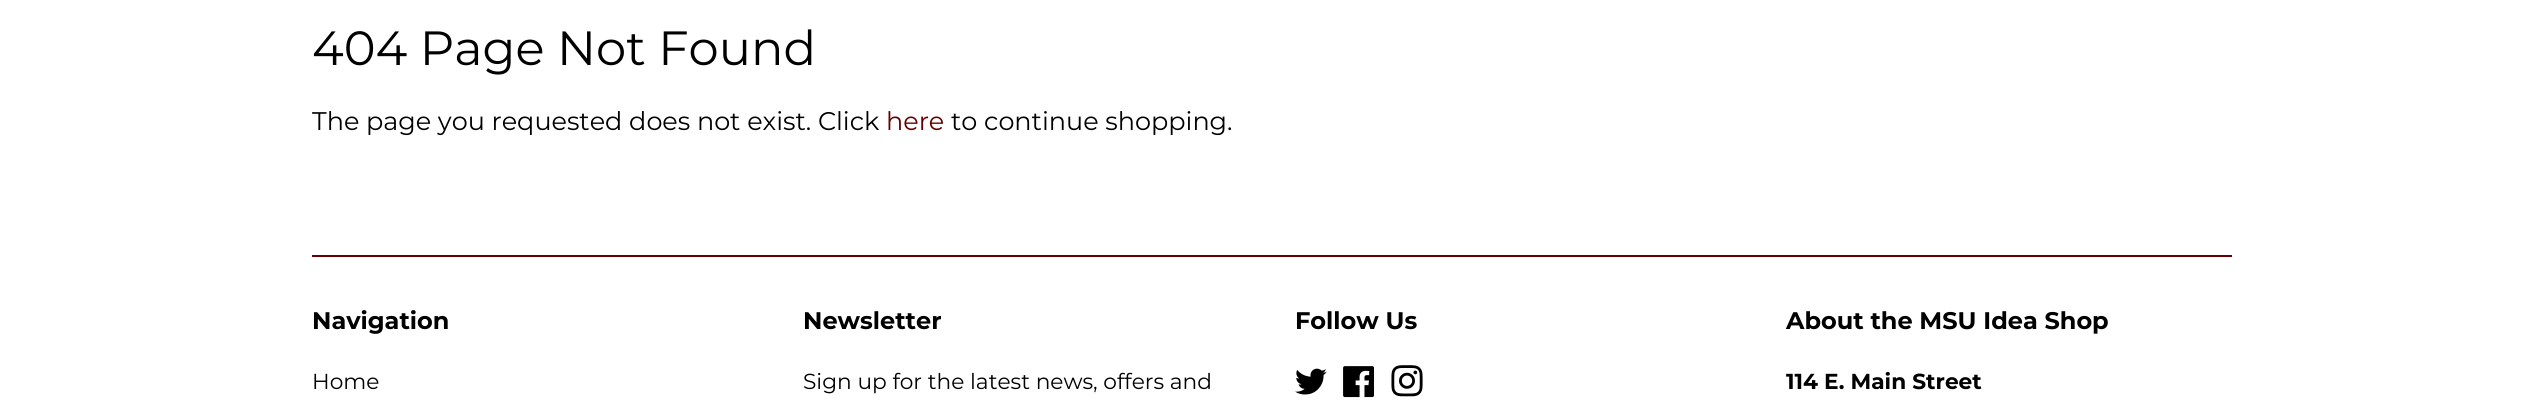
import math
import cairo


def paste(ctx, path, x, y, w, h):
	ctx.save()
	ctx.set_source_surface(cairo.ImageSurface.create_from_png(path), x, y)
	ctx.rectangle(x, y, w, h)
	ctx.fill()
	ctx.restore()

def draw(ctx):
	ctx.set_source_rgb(1, 1, 1)
	ctx.paint()
	ctx.select_font_face('Montserrat')
	ctx.set_font_size(48)
	ctx.set_source_rgb(0, 0, 0)
	ctx.move_to(312, 65)
	ctx.show_text('404 Page Not Found')
	ctx.set_font_size(25.5)
	ctx.move_to(312, 130)
	ctx.show_text('The page you requested does not exist. Click')
	ctx.set_source_rgb(0.4, 0, 0)
	ctx.move_to(886, 130)
	ctx.show_text('here')
	ctx.set_source_rgb(0, 0, 0)
	ctx.move_to(951, 130)
	ctx.show_text('to continue shopping.')
	ctx.set_source_rgb(0.4, 0, 0)
	ctx.rectangle(312, 255, 1920, 2)
	ctx.fill()
	ctx.select_font_face('Montserrat', cairo.FONT_SLANT_NORMAL, cairo.FONT_WEIGHT_BOLD)
	ctx.set_font_size(24)
	ctx.set_source_rgb(0, 0, 0)
	ctx.move_to(312, 329)
	ctx.show_text('Navigation')
	ctx.select_font_face('Montserrat')
	ctx.set_font_size(21.7)
	ctx.move_to(312, 389)
	ctx.show_text('Home')
	ctx.select_font_face('Montserrat', cairo.FONT_SLANT_NORMAL, cairo.FONT_WEIGHT_BOLD)
	ctx.set_font_size(24)
	ctx.move_to(803, 329)
	ctx.show_text('Newsletter')
	ctx.select_font_face('Montserrat')
	ctx.set_font_size(21.7)
	ctx.move_to(803, 389)
	ctx.show_text('Sign up for the latest news, offers and')
	ctx.select_font_face('Montserrat', cairo.FONT_SLANT_NORMAL, cairo.FONT_WEIGHT_BOLD)
	ctx.set_font_size(24)
	ctx.move_to(1295, 329)
	ctx.show_text('Follow Us')
	paste(ctx, 'media/1.png', 1295, 368, 32, 27)
	paste(ctx, 'media/2.png', 1343, 366, 31, 32)
	paste(ctx, 'media/3.png', 1391, 365, 32, 32)
	ctx.move_to(1786, 329)
	ctx.show_text('About the MSU Idea Shop')
	ctx.set_font_size(21.7)
	ctx.move_to(1786, 389)
	ctx.show_text('114 E. Main Street')


surface = cairo.ImageSurface(cairo.FORMAT_RGB24, 2544, 409)
ctx = cairo.Context(surface)
options = cairo.FontOptions()
options.set_hint_metrics(cairo.HINT_METRICS_OFF)
options.set_hint_style(cairo.HINT_STYLE_NONE)
ctx.set_font_options(options)
ctx.set_miter_limit(4)
draw(ctx)
surface.write_to_png('image.png')
